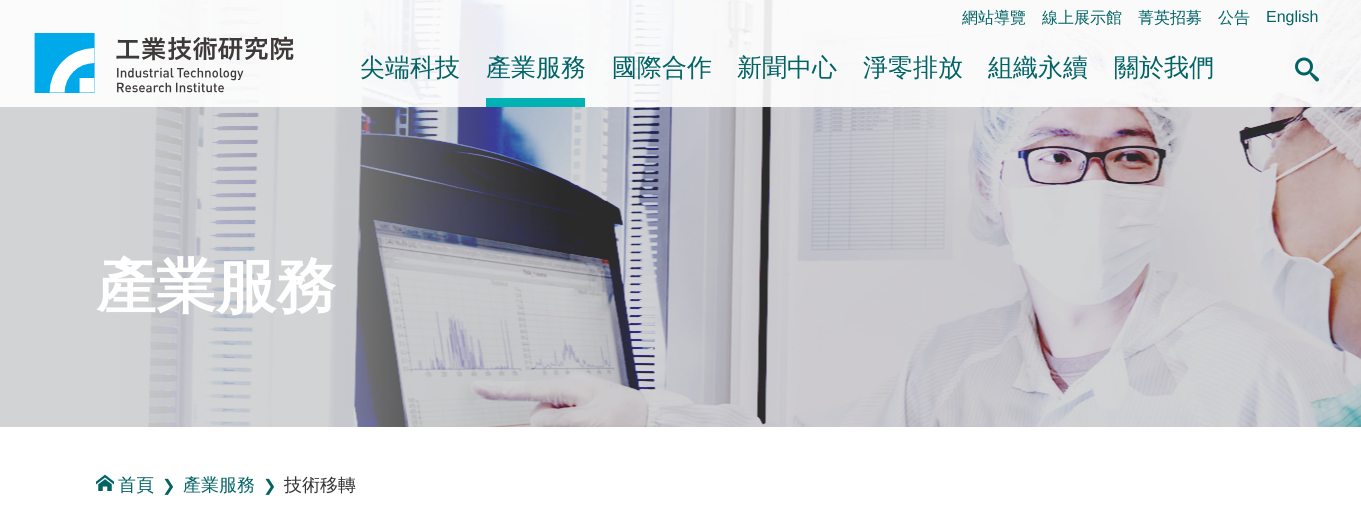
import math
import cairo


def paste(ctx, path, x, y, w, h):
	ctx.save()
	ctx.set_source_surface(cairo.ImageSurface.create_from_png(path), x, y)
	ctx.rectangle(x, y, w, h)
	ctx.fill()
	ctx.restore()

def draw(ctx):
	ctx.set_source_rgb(1, 1, 1)
	ctx.paint()
	paste(ctx, 'media/3.png', 0, 0, 1361, 427)
	ctx.set_source_rgba(1, 1, 1, 0.9)
	ctx.rectangle(0, 0, 1361, 107)
	ctx.fill()
	ctx.select_font_face('WenQuanYi Zen Hei Medium')
	ctx.set_font_size(16)
	ctx.set_source_rgb(0.004, 0.388, 0.392)
	for x, y, s in [
		(962, 23, '網站導覽'),
		(1042, 23, '線上展示館'),
		(1138, 23, '菁英招募'),
		(1218, 23, '公告'),
	]:
		ctx.move_to(x, y)
		ctx.show_text(s)
	ctx.select_font_face('Liberation Sans')
	ctx.move_to(1266, 22)
	ctx.show_text('English')
	paste(ctx, 'media/1.png', 34, 33, 260, 60)
	ctx.select_font_face('WenQuanYi Zen Hei Medium')
	ctx.set_font_size(25)
	ctx.move_to(360, 76)
	ctx.show_text('尖端科技')
	ctx.set_source_rgb(0, 0.698, 0.702)
	ctx.rectangle(486, 98, 99, 9)
	ctx.fill()
	ctx.set_source_rgb(0.004, 0.388, 0.392)
	for x, y, s in [
		(486, 76, '產業服務'),
		(612, 76, '國際合作'),
		(737, 76, '新聞中心'),
		(863, 76, '淨零排放'),
		(988, 76, '組織永續'),
		(1114, 76, '關於我們'),
	]:
		ctx.move_to(x, y)
		ctx.show_text(s)
	paste(ctx, 'media/2.png', 1295, 57, 24, 25)
	ctx.select_font_face('WenQuanYi Zen Hei', cairo.FONT_SLANT_NORMAL, cairo.FONT_WEIGHT_BOLD)
	ctx.set_font_size(60)
	ctx.set_source_rgb(1, 1, 1)
	ctx.move_to(96, 307)
	ctx.show_text('產業服務')
	paste(ctx, 'media/4.png', 96, 474, 18, 17)
	ctx.select_font_face('WenQuanYi Zen Hei Medium')
	ctx.set_font_size(18)
	ctx.set_source_rgb(0.004, 0.388, 0.392)
	ctx.move_to(118, 491)
	ctx.show_text('首頁')
	ctx.select_font_face('DejaVu Sans')
	ctx.set_font_size(16)
	ctx.move_to(162, 491)
	ctx.show_text('❯')
	ctx.select_font_face('WenQuanYi Zen Hei Medium')
	ctx.set_font_size(18)
	ctx.move_to(183, 491)
	ctx.show_text('產業服務')
	ctx.select_font_face('DejaVu Sans')
	ctx.set_font_size(16)
	ctx.move_to(263, 491)
	ctx.show_text('❯')
	ctx.select_font_face('WenQuanYi Zen Hei Medium')
	ctx.set_font_size(18)
	ctx.set_source_rgb(0.196, 0.196, 0.196)
	ctx.move_to(284, 491)
	ctx.show_text('技術移轉')


surface = cairo.ImageSurface(cairo.FORMAT_RGB24, 1361, 509)
ctx = cairo.Context(surface)
options = cairo.FontOptions()
options.set_hint_metrics(cairo.HINT_METRICS_OFF)
options.set_hint_style(cairo.HINT_STYLE_NONE)
ctx.set_font_options(options)
ctx.set_miter_limit(4)
draw(ctx)
surface.write_to_png('image.png')
